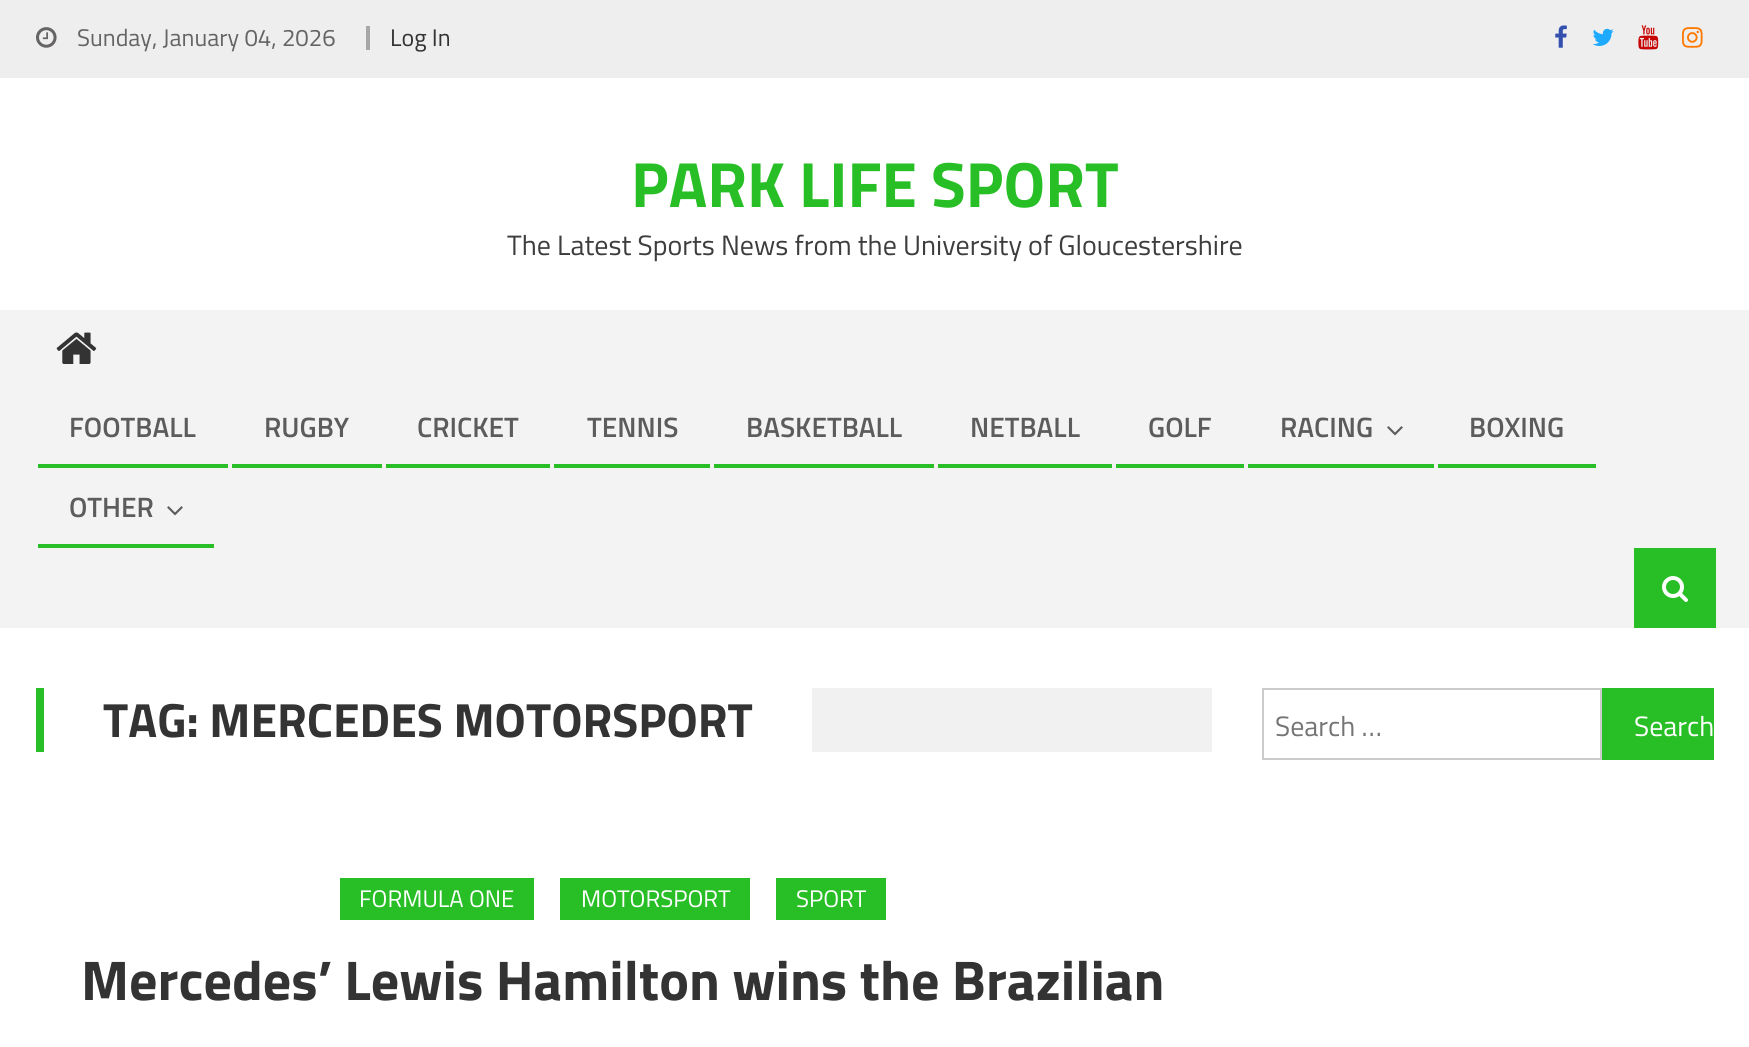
import math
import cairo

surface = cairo.ImageSurface(cairo.FORMAT_RGB24, 1749, 1047)
c = cairo.Context(surface)
options = cairo.FontOptions()
options.set_hint_metrics(cairo.HINT_METRICS_OFF)
options.set_hint_style(cairo.HINT_STYLE_NONE)
c.set_font_options(options)
c.set_miter_limit(4)
def C(code):
 c.set_source_rgb(*(v / 255 for v in bytes.fromhex(code[-6:])))
def F(family, size, italic, bold):
 c.select_font_face(family, cairo.FONT_SLANT_ITALIC if italic else cairo.FONT_SLANT_NORMAL, cairo.FONT_WEIGHT_BOLD if bold else cairo.FONT_WEIGHT_NORMAL)
 c.set_font_size(size)
def T(x, y, s):
 c.move_to(x, y)
 c.show_text(s)
def R(x, y, w, h):
 c.rectangle(x, y, w, h)
 c.fill()
def I(path, x, y, w, h):
 c.save()
 c.set_source_surface(cairo.ImageSurface.create_from_png(path), x, y)
 c.rectangle(x, y, w, h)
 c.fill()
 c.restore()
C('ffffff')
c.paint()
C('eeeeee')
R(0,0,1749,78)
I('1.png',36,27,21,21)
F('Titillium Web',24,0,0)
C('666363')
T(77,46,'Sunday, January 04, 2026')
C('a7a7a7')
R(366,26,4,24)
C('333333')
T(390,46,'Log In')
I('2.png',1555,25,12,23)
I('3.png',1592,28,22,18)
I('4.png',1638,25,21,25)
I('5.png',1682,27,21,21)
F('Titillium Web',64,0,1)
C('28bf26')
T(631,207,'PARK LIFE SPORT')
F('Titillium Web',28,0,0)
C('3d3d3d')
T(507,255,'The Latest Sports News from the University of Gloucestershire')
C('f3f3f3')
R(0,310,1749,318)
I('6.png',56,332,41,32)
C('28bf26')
R(38,464,190,4)
F('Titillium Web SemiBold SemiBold',28,0,0)
C('5d5c5c')
T(69,437,'FOOTBALL')
C('28bf26')
R(232,464,150,4)
C('5d5c5c')
T(264,437,'RUGBY')
C('28bf26')
R(386,464,164,4)
C('5d5c5c')
T(417,437,'CRICKET')
C('28bf26')
R(554,464,156,4)
C('5d5c5c')
T(587,437,'TENNIS')
C('28bf26')
R(714,464,220,4)
C('5d5c5c')
T(746,437,'BASKETBALL')
C('28bf26')
R(938,464,174,4)
C('5d5c5c')
T(970,437,'NETBALL')
C('28bf26')
R(1116,464,128,4)
C('5d5c5c')
T(1148,437,'GOLF')
C('28bf26')
R(1248,464,186,4)
C('5d5c5c')
T(1280,437,'RACING')
I('7.png',1387,426,16,10)
C('28bf26')
R(1438,464,158,4)
C('5d5c5c')
T(1469,437,'BOXING')
C('28bf26')
R(38,544,176,4)
C('5d5c5c')
T(69,517,'OTHER')
I('7.png',167,506,16,10)
C('28bf26')
R(1634,548,82,80)
I('8.png',1662,576,26,26)
C('f1f1f1')
R(812,688,400,64)
C('28bf26')
R(36,688,8,64)
F('Titillium Web',48,0,1)
C('333333')
T(103,737,'TAG: MERCEDES MOTORSPORT')
C('28bf26')
R(340,878,194,42)
F('Titillium Web',24,0,0)
C('ffffff')
T(359,907,'FORMULA ONE')
C('28bf26')
R(560,878,190,42)
C('ffffff')
T(581,907,'MOTORSPORT')
C('28bf26')
R(776,878,110,42)
C('ffffff')
T(796,907,'SPORT')
F('Titillium Web',56,0,1)
C('333333')
T(81,1000,'Mercedes’ Lewis Hamilton wins the Brazilian')
c.rectangle(1263,689,338,70)
C('cccccc')
c.stroke()
F('Titillium Web',28,0,0)
C('757575')
T(1275,736,'Search …')
C('28bf26')
R(1602,688,112,72)
C('ffffff')
T(1634,736,'Search')
surface.write_to_png('o.png')
